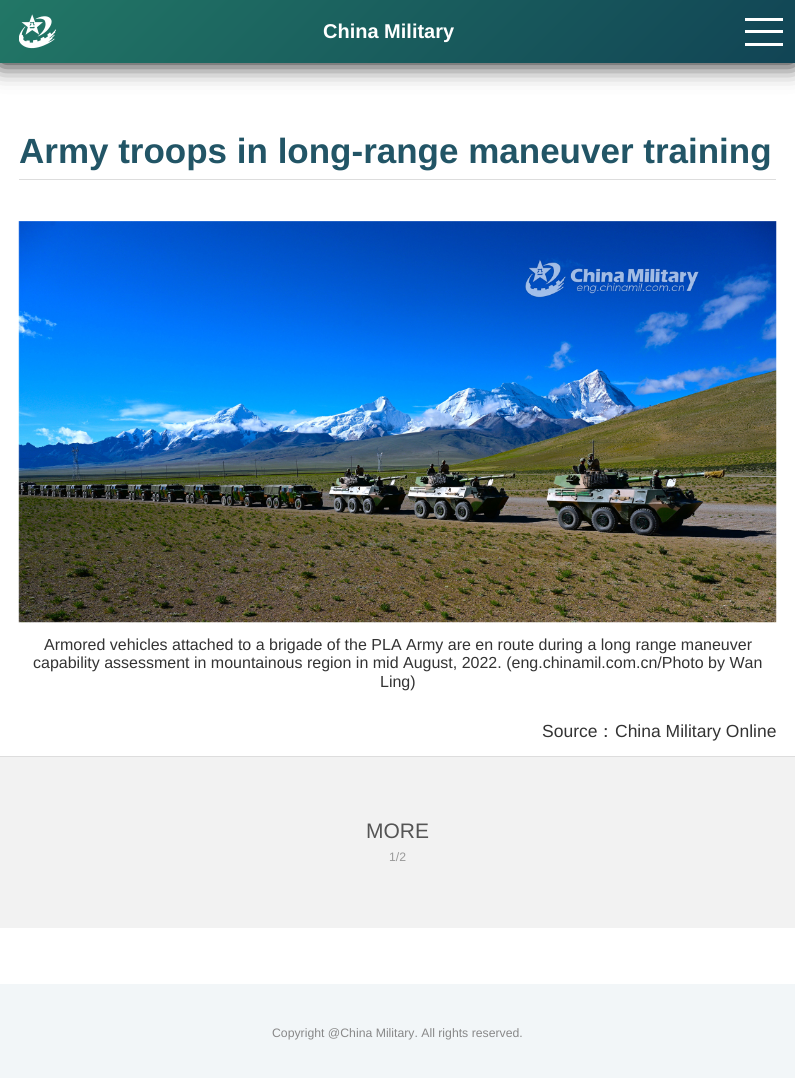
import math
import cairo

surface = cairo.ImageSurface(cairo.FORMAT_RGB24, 795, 1078)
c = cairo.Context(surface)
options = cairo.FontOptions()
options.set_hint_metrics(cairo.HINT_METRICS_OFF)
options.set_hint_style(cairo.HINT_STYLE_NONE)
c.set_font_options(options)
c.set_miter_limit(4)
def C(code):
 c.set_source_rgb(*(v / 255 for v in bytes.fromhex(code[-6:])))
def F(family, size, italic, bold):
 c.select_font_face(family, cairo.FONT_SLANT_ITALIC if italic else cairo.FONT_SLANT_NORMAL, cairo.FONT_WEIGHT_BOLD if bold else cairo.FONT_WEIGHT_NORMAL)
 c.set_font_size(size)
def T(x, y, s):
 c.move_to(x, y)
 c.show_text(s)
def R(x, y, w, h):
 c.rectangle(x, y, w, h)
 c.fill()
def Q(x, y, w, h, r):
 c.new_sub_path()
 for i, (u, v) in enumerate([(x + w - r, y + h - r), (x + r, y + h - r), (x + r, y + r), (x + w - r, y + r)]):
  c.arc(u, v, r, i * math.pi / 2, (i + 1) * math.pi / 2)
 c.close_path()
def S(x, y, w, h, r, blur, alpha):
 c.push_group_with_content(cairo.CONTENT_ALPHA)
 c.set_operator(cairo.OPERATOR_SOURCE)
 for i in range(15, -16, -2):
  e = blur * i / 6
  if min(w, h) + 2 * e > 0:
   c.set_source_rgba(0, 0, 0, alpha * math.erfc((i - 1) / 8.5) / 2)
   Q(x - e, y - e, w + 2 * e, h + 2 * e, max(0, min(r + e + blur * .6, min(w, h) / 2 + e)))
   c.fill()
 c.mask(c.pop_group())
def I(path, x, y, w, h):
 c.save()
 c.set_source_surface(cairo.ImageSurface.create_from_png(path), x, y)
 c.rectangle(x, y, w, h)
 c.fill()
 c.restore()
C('ffffff')
c.paint()
C('000000')
S(0,0,795,63,0,12.5,1)
gradient = cairo.LinearGradient(183,-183,612,246)
gradient.add_color_stop_rgba(0,0.133,0.467,0.4,1)
gradient.add_color_stop_rgba(1,0.067,0.267,0.333,1)
c.set_source(gradient)
R(0,0,795,63)
I('1.png',19,14,37,35)
F('Liberation Sans',20,0,1)
C('ffffff')
T(323,38,'China Military')
R(745,30,38,3)
R(745,18,38,3)
R(745,43,38,3)
F('Liberation Sans',35,0,1)
C('225566')
T(19,163,'Army troops in long-range maneuver training')
C('dddddd')
R(19,179,757,1)
I('2.png',18,221,759,402)
F('Liberation Sans',16,0,0)
C('333333')
T(44,650,'Armored vehicles attached to a brigade of the PLA Army are en route during a long range maneuver')
T(33,668,'capability assessment in mountainous region in mid August, 2022. (eng.chinamil.com.cn/Photo by Wan')
T(380,687,'Ling)')
F('Liberation Sans',17.5,0,0)
T(542,737,'Source')
F('WenQuanYi Zen Hei Medium',17.5,0,0)
T(597,737,'：')
F('Liberation Sans',17.5,0,0)
T(615,737,'China Military Online')
C('f2f2f2')
R(0,757,795,171)
C('dddddd')
R(0,756,795,1)
F('Liberation Sans',21,0,0)
C('555555')
T(366,838,'MORE')
F('Liberation Sans',12.25,0,0)
C('999999')
T(389,861,'1/2')
C('f2f6f8')
R(0,984,795,94)
C('888888')
T(272,1037,'Copyright @China Military. All rights reserved.')
surface.write_to_png('o.png')
